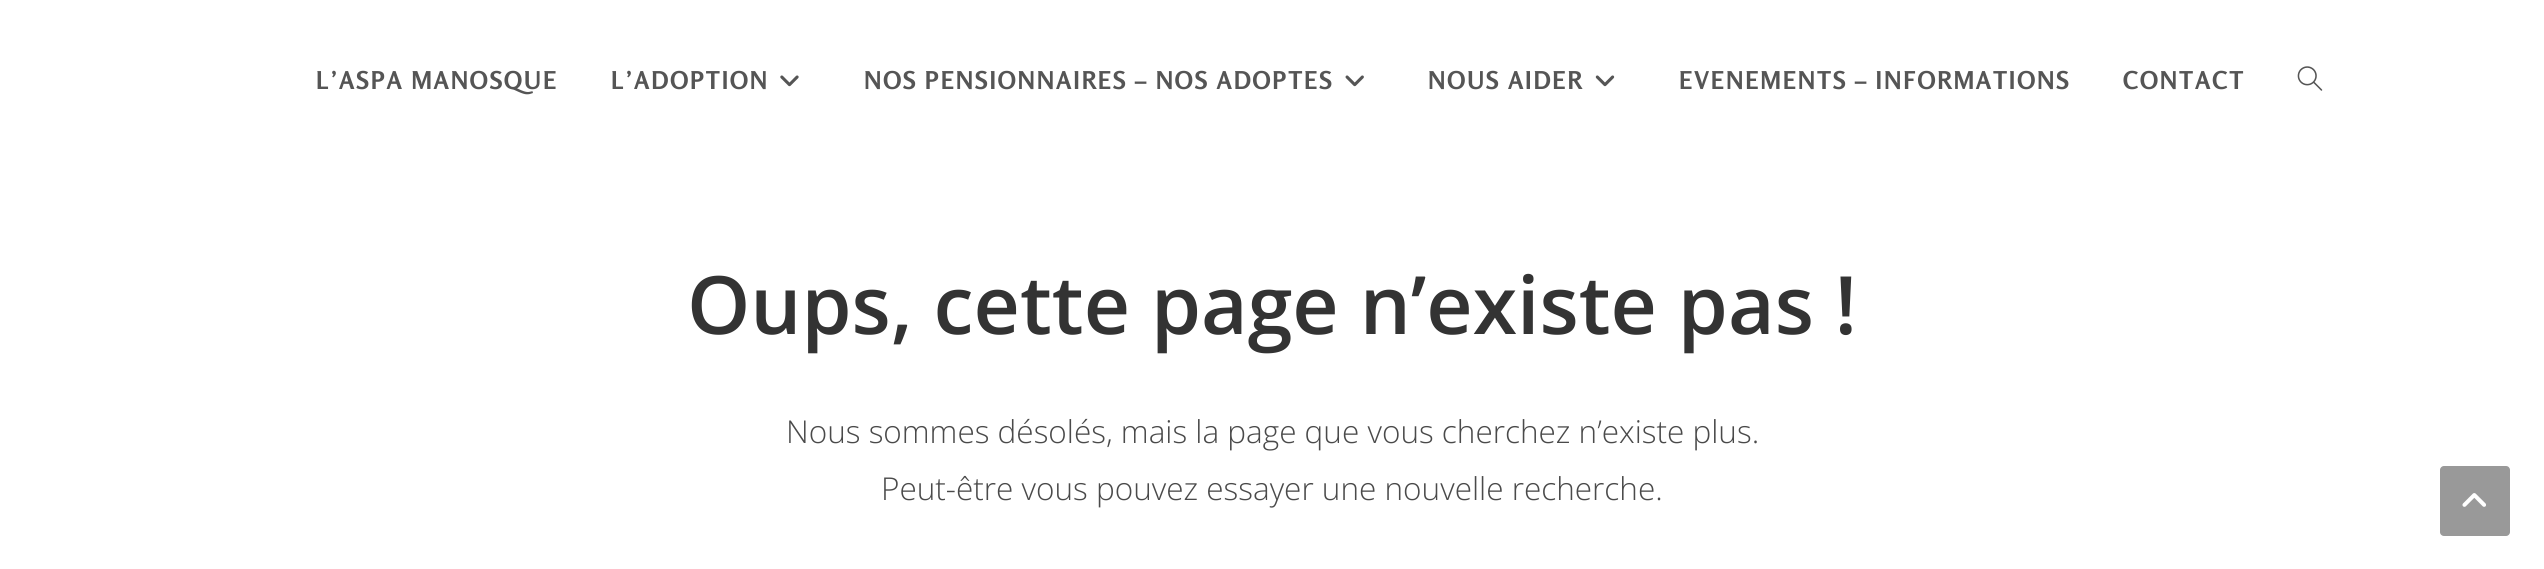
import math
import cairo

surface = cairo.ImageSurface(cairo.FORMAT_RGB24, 2544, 569)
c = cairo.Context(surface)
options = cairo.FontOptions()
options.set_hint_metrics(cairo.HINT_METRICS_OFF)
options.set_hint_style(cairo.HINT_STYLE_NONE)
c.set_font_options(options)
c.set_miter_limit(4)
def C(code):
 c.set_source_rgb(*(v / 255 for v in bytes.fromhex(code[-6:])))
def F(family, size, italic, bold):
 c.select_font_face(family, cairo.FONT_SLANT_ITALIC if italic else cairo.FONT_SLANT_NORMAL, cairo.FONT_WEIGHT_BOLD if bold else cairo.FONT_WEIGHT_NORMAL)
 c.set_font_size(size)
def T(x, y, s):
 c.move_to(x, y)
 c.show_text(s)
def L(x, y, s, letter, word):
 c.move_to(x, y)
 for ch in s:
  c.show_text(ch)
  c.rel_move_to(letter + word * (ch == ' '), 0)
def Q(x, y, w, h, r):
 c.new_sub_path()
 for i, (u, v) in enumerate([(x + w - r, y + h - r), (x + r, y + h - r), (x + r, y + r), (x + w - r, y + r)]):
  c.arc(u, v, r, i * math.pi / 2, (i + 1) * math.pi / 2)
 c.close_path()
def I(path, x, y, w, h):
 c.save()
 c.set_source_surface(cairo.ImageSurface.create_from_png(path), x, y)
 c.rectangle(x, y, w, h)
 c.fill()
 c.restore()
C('ffffff')
c.paint()
F('Rosario',24.5,0,1)
C('555555')
L(316,89,'L’ASPA MANOSQUE',1.75,0)
L(611,89,'L’ADOPTION',1.75,0)
I('1.png',780,75,19,12)
L(864,89,'NOS PENSIONNAIRES – NOS ADOPTES',1.75,0)
I('2.png',1345,75,19,12)
L(1428,89,'NOUS AIDER',1.75,0)
I('3.png',1595,75,20,12)
L(1679,89,'EVENEMENTS – INFORMATIONS',1.75,0)
L(2123,89,'CONTACT',1.75,0)
I('4.png',2297,66,26,25)
F('Open Sans SemiBold',80.5,0,0)
C('333333')
T(687,334,'Oups, cette page n’existe pas !')
F('Open Sans Light',31.5,0,0)
C('4a4a4a')
T(786,443,'Nous sommes désolés, mais la page que vous cherchez n’existe plus.')
T(881,500,'Peut-être vous pouvez essayer une nouvelle recherche.')
C('999999')
Q(2440,466,70,70,4)
c.fill()
I('5.png',2462,493,24,14)
surface.write_to_png('o.png')
